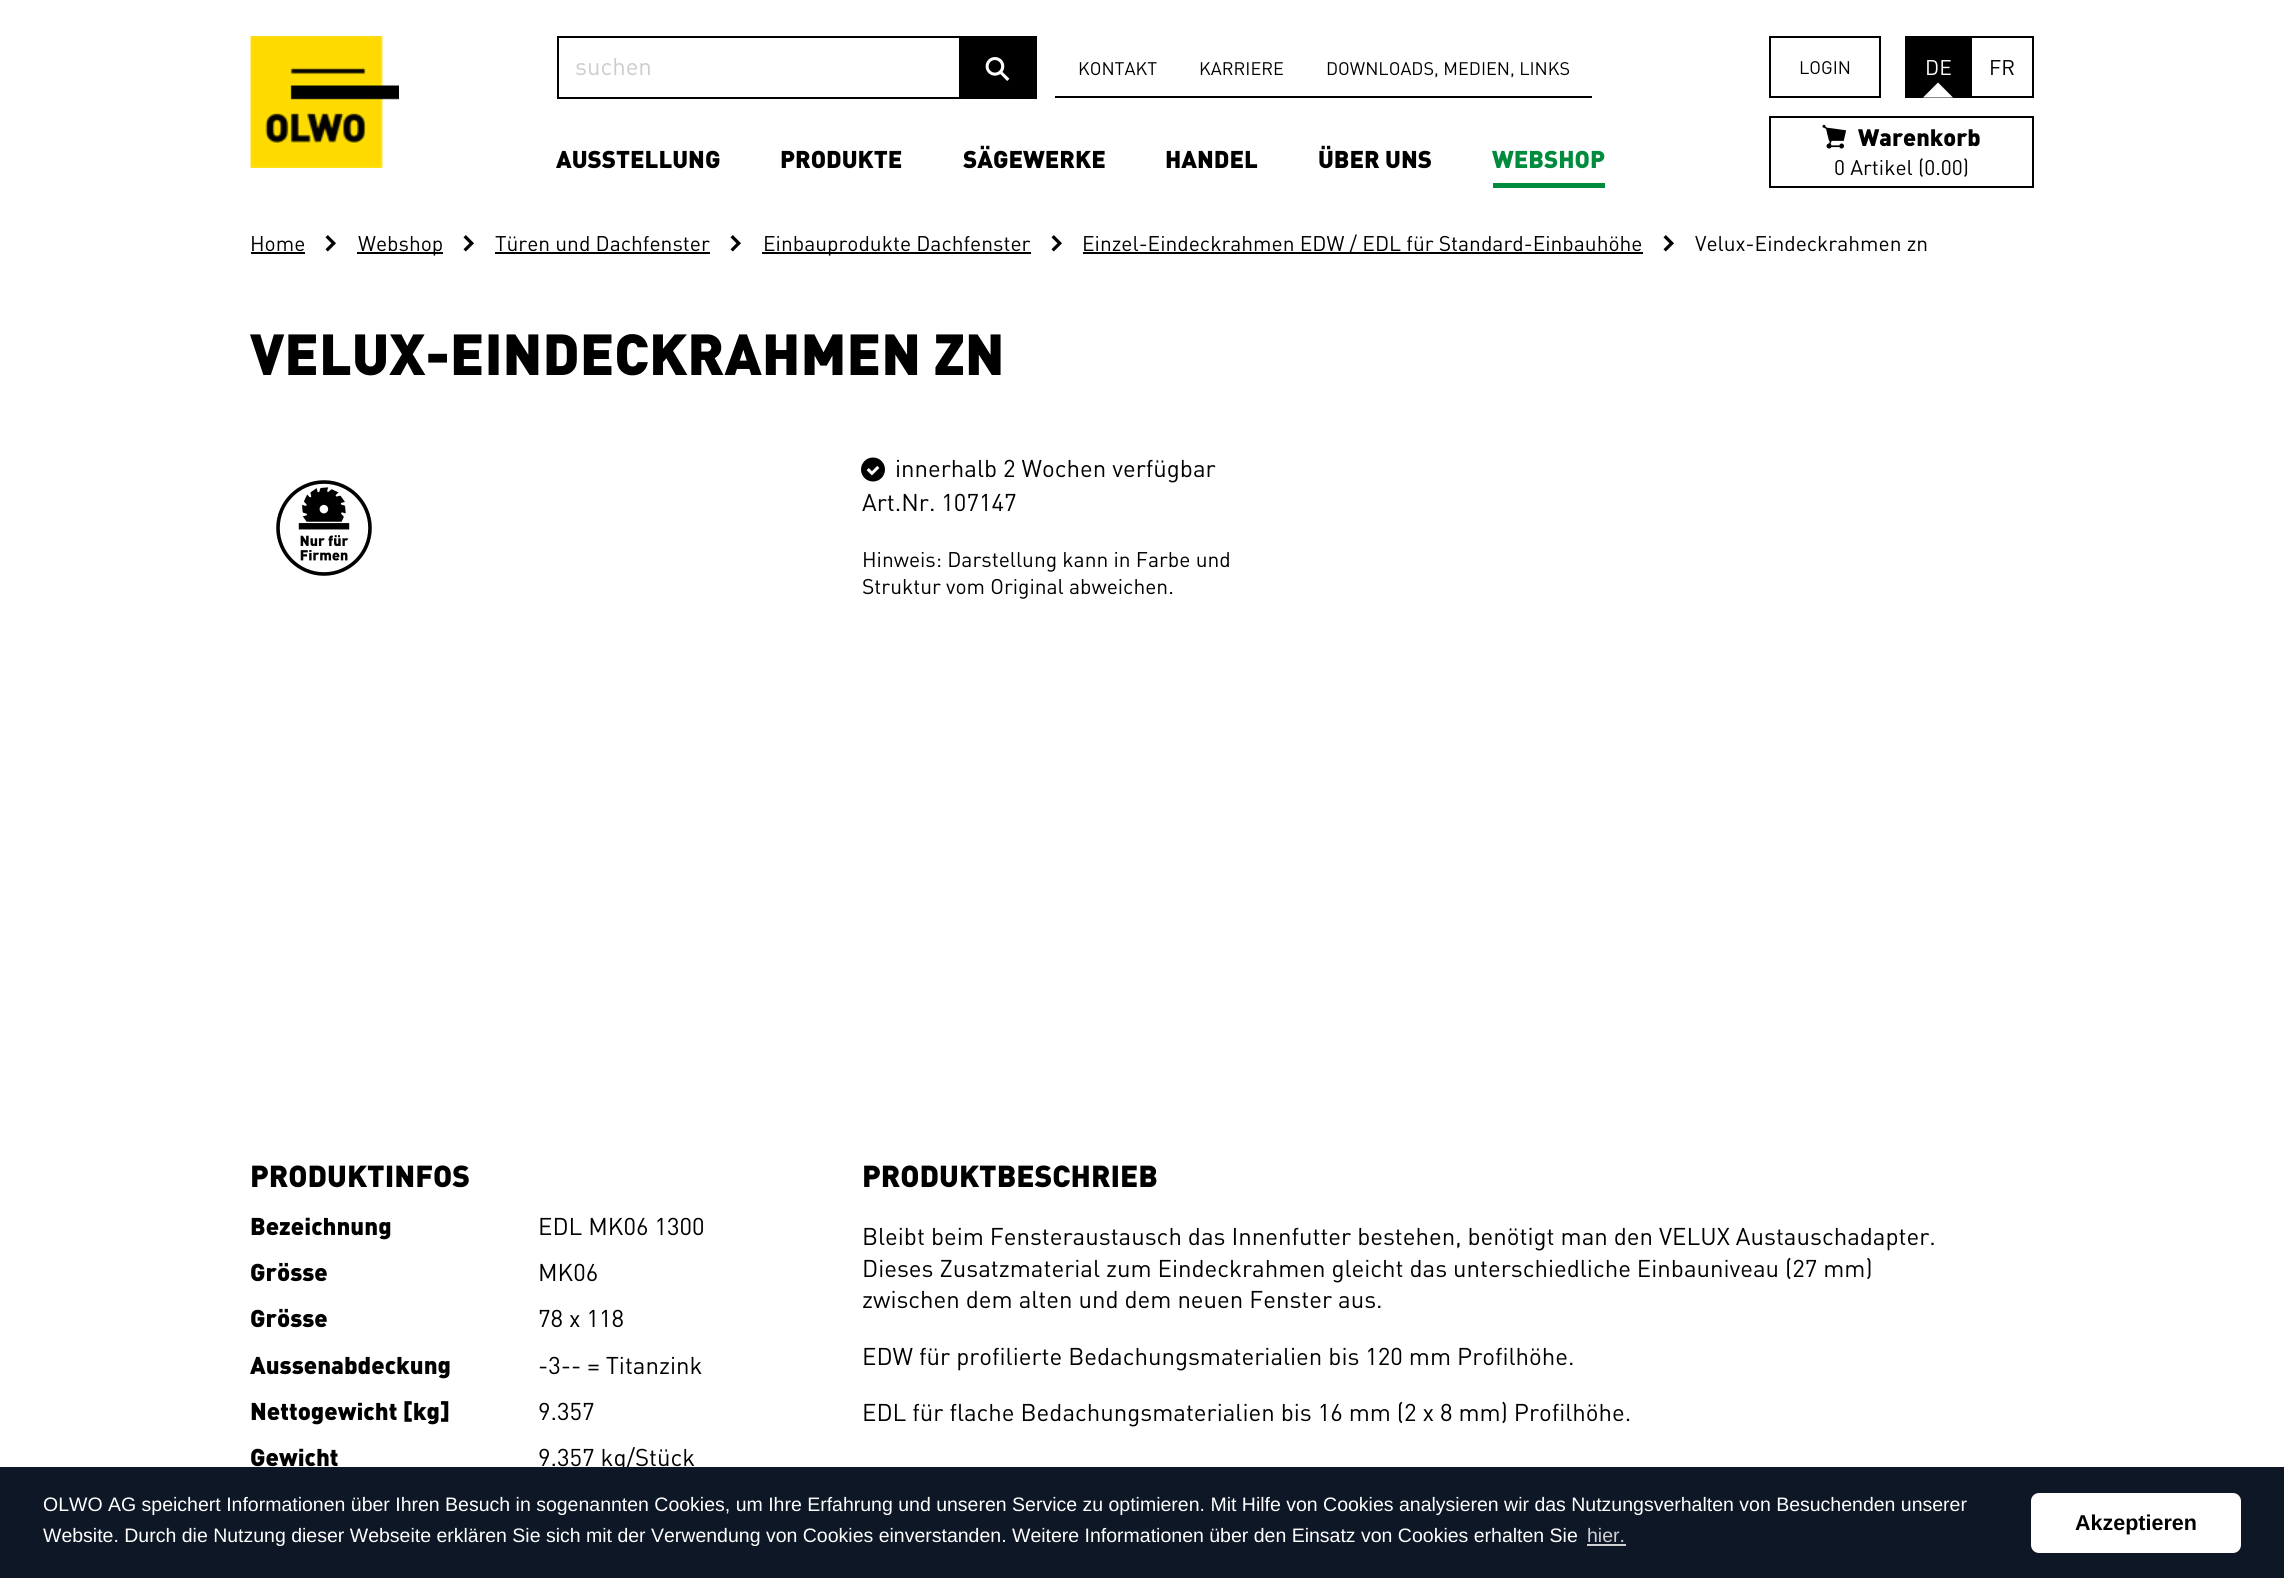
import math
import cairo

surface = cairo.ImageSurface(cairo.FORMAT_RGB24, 2284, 1578)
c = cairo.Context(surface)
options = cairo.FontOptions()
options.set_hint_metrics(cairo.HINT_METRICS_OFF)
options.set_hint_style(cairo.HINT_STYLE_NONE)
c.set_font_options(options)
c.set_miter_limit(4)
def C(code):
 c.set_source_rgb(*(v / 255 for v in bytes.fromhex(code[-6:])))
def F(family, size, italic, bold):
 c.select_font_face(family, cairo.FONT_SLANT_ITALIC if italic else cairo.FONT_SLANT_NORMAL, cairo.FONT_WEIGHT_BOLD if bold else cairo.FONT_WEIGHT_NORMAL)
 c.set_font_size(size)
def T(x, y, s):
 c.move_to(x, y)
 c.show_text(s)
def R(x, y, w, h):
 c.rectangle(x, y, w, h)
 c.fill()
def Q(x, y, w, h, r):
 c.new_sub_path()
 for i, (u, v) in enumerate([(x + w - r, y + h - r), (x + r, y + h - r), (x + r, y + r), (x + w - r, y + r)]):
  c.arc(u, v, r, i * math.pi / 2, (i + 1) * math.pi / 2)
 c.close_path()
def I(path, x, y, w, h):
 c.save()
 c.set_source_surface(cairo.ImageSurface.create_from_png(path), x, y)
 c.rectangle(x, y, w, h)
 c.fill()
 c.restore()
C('ffffff')
c.paint()
I('1.png',250,36,149,132)
c.rectangle(558,37,478,61)
C('000000')
c.stroke()
F('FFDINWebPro',24,0,0)
C('cccccc')
T(575,75,'suchen')
C('000000')
R(959,38,76,59)
I('2.png',985,57,25,24)
R(1055,96,537,2)
F('FFDINWebPro',18,0,0)
T(1078,75,'KONTAKT')
T(1199,75,'KARRIERE')
T(1326,75,'DOWNLOADS, MEDIEN, LINKS')
c.rectangle(1770,37,110,60)
c.stroke()
T(1799,74,'LOGIN')
R(1905,36,65,62)
F('FFDINWebPro',21,0,0)
C('ffffff')
T(1925,75,'DE')
c.new_path()
c.move_to(1953,97.5)
c.line_to(1923,97.5)
c.line_to(1938,82.5)
c.close_path()
c.fill()
c.rectangle(1971,37,62,60)
C('000000')
c.stroke()
T(1989,75,'FR')
F('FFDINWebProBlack',24,0,0)
T(556,168,'AUSSTELLUNG')
T(780,168,'PRODUKTE')
T(963,168,'SÄGEWERKE')
T(1165,168,'HANDEL')
T(1318,168,'ÜBER UNS')
C('008b3d')
R(1493,183,112,5)
T(1492,168,'WEBSHOP')
c.rectangle(1770,117,263,70)
C('000000')
c.stroke()
I('3.png',1822,124,25,25)
F('FFDINWebProBlack',23.5,0,0)
T(1858,146,'Warenkorb')
F('FFDINWebPro',21,0,0)
T(1834,175,'0 Artikel (0.00)')
T(250,251,'Home')
R(251,252,54,2)
I('4.png',325,235,11,17)
R(357,252,86,2)
T(358,251,'Webshop')
I('4.png',463,235,11,17)
T(495,251,'Türen und Dachfenster')
R(495,252,215,2)
I('4.png',730,235,11,17)
R(762,252,269,2)
T(763,251,'Einbauprodukte Dachfenster')
I('4.png',1051,235,11,17)
R(1083,252,560,2)
T(1082,251,'Einzel-Eindeckrahmen EDW / EDL für Standard-Einbauhöhe')
I('4.png',1663,235,11,17)
T(1695,251,'Velux-Eindeckrahmen zn')
F('FFDINWebProBlack',57,0,0)
T(250,375,'VELUX-EINDECKRAHMEN ZN')
I('5.png',276,480,96,96)
I('6.png',861,457,24,25)
F('FFDINWebPro',24,0,0)
T(895,477,'innerhalb 2 Wochen verfügbar')
T(862,511,'Art.Nr. 107147')
F('FFDINWebPro',21,0,0)
T(862,567,'Hinweis: Darstellung kann in Farbe und')
T(862,594,'Struktur vom Original abweichen.')
F('FFDINWebProBlack',30,0,0)
T(250,1187,'PRODUKTINFOS')
F('FFDINWebProBlack',24,0,0)
T(250,1235,'Bezeichnung')
F('FFDINWebPro',24,0,0)
T(538,1235,'EDL MK06 1300')
F('FFDINWebProBlack',24,0,0)
T(250,1281,'Grösse')
F('FFDINWebPro',24,0,0)
T(538,1281,'MK06')
F('FFDINWebProBlack',24,0,0)
T(250,1327,'Grösse')
F('FFDINWebPro',24,0,0)
T(538,1327,'78 x 118')
F('FFDINWebProBlack',24,0,0)
T(250,1374,'Aussenabdeckung')
F('FFDINWebPro',24,0,0)
T(538,1374,'-3-- = Titanzink')
F('FFDINWebProBlack',24,0,0)
T(250,1420,'Nettogewicht [kg]')
F('FFDINWebPro',24,0,0)
T(538,1420,'9.357')
F('FFDINWebProBlack',24,0,0)
T(250,1466,'Gewicht')
F('FFDINWebPro',24,0,0)
T(538,1466,'9.357 kg/Stück')
F('FFDINWebProBlack',30,0,0)
T(862,1187,'PRODUKTBESCHRIEB')
F('FFDINWebPro',24,0,0)
T(862,1245,'Bleibt beim Fensteraustausch das Innenfutter bestehen, benötigt man den VELUX Austauschadapter.')
T(862,1277,'Dieses Zusatzmaterial zum Eindeckrahmen gleicht das unterschiedliche Einbauniveau (27 mm)')
T(862,1308,'zwischen dem alten und dem neuen Fenster aus.')
T(862,1365,'EDW für profilierte Bedachungsmaterialien bis 120 mm Profilhöhe.')
T(862,1421,'EDL für flache Bedachungsmaterialien bis 16 mm (2 x 8 mm) Profilhöhe.')
C('0e1726')
R(0,1467,2284,111)
F('Liberation Sans',19.5,0,0)
C('ffffff')
T(43,1511,'OLWO AG speichert Informationen über Ihren Besuch in sogenannten Cookies, um Ihre Erfahrung und unseren Service zu optimieren. Mit Hilfe von Cookies analysieren wir das Nutzungsverhalten von Besuchenden unserer')
T(43,1542,'Website. Durch die Nutzung dieser Webseite erklären Sie sich mit der Verwendung von Cookies einverstanden. Weitere Informationen über den Einsatz von Cookies erhalten Sie')
C('cfd1d4')
T(1587,1542,'hier.')
R(1587,1544,39,2)
C('ffffff')
Q(2031,1493,210,60,8)
c.fill()
F('Liberation Sans',21.5,0,1)
C('000000')
T(2075,1530,'Akzeptieren')
surface.write_to_png('o.png')
